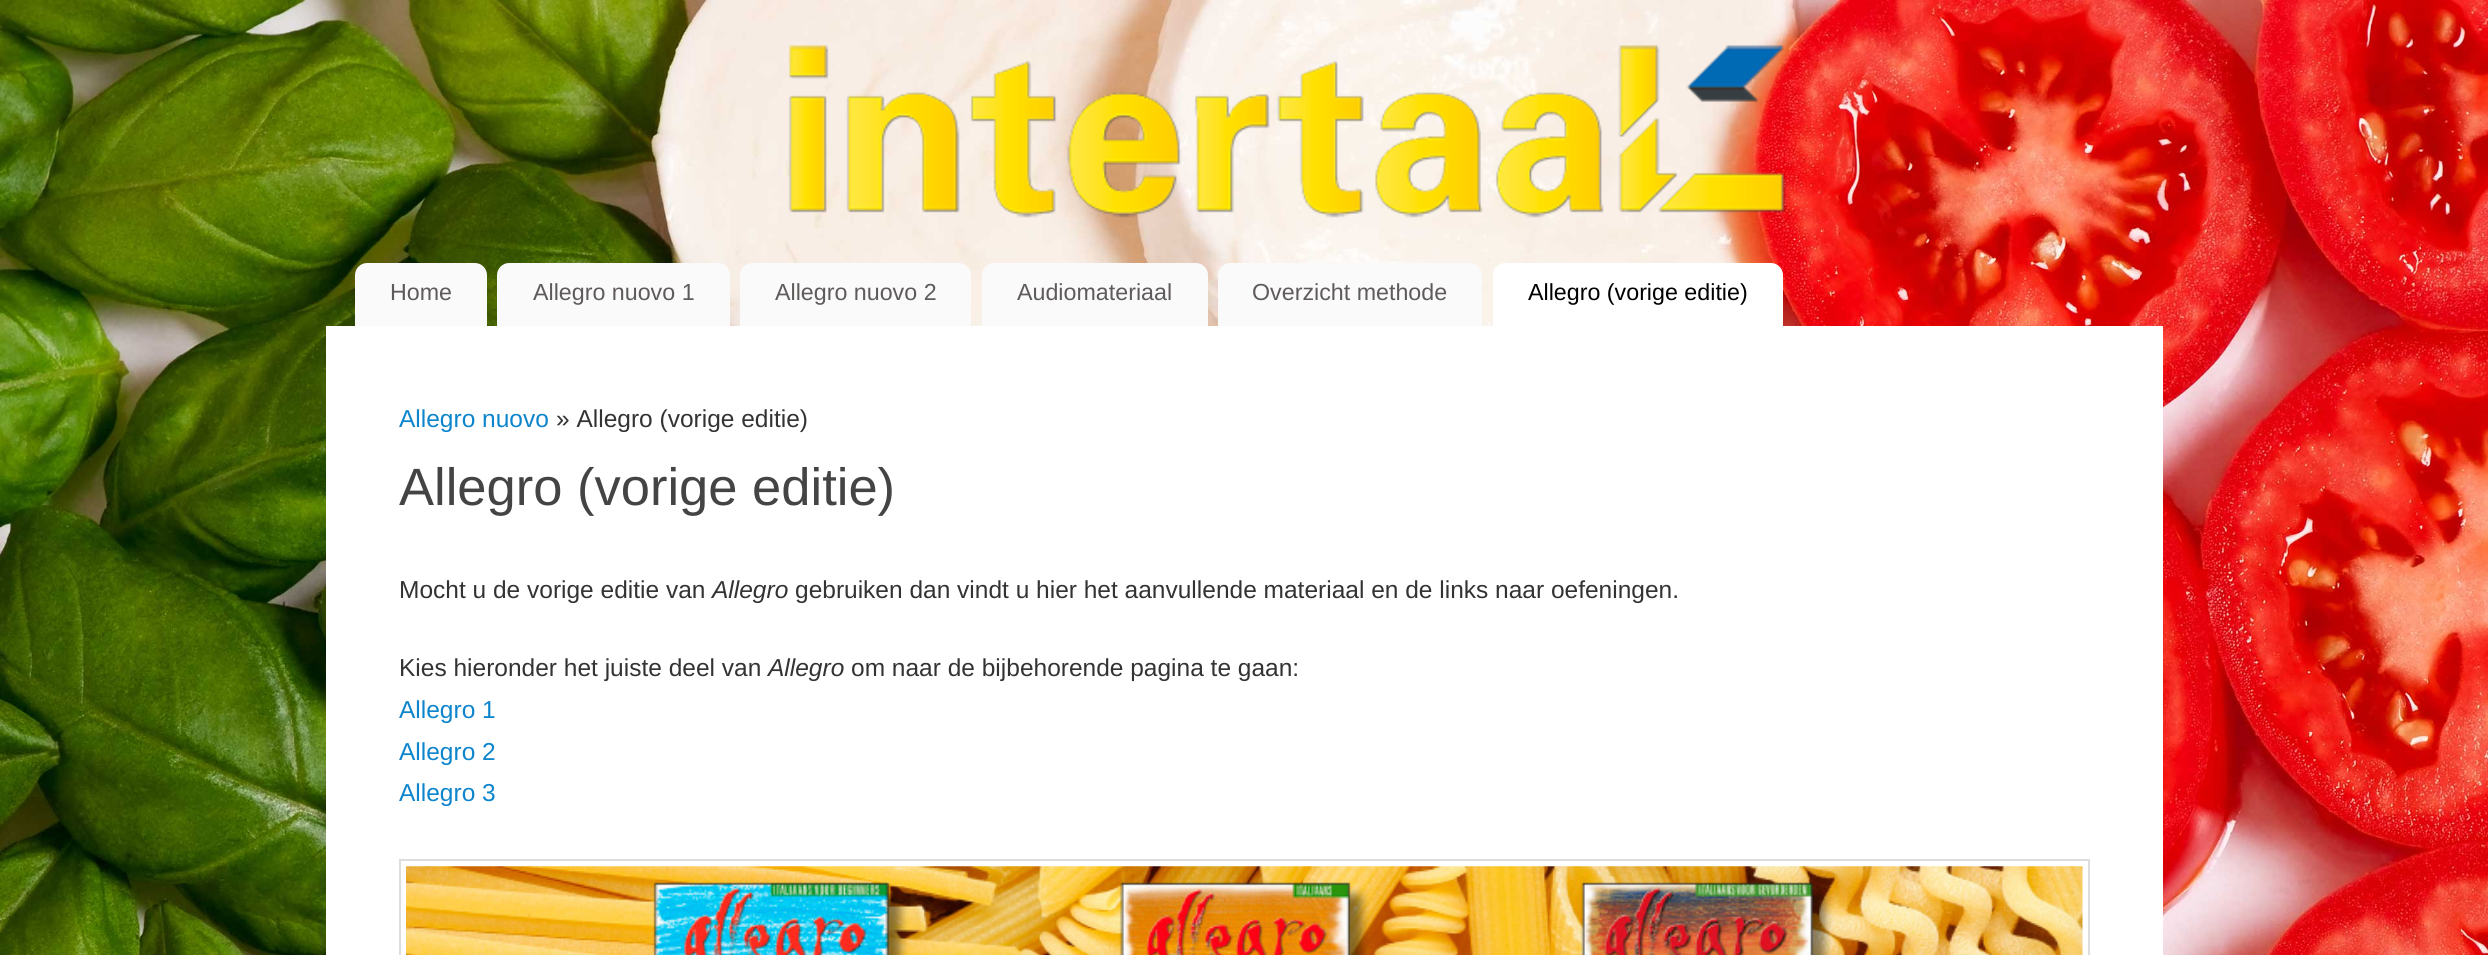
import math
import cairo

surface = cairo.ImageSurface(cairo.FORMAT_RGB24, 2488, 955)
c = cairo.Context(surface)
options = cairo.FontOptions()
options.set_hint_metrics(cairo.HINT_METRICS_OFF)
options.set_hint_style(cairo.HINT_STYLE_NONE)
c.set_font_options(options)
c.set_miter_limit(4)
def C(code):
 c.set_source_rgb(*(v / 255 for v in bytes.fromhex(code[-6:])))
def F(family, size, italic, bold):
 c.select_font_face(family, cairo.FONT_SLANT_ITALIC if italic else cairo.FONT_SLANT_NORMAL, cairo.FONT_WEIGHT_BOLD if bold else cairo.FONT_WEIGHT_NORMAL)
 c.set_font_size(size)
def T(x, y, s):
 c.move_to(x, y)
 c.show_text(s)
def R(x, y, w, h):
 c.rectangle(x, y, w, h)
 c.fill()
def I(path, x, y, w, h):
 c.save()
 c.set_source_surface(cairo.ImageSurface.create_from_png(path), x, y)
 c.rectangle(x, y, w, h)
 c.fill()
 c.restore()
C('ffffff')
c.paint()
I('1.png',0,0,2488,955)
I('2.png',788,45,998,173)
C('fafafa')
c.new_path()
c.move_to(367,263)
c.line_to(475,263)
c.curve_to(481.5,263,487,268.5,487,275)
c.line_to(487,326)
c.line_to(355,326)
c.line_to(355,275)
c.curve_to(355,268.5,360.5,263,367,263)
c.close_path()
c.fill()
F('Liberation Sans',23.25,0,0)
C('5f5b5b')
T(390,300,'Home')
C('fafafa')
c.new_path()
c.move_to(509,263)
c.line_to(718,263)
c.curve_to(724.5,263,730,268.5,730,275)
c.line_to(730,326)
c.line_to(497,326)
c.line_to(497,275)
c.curve_to(497,268.5,502.5,263,509,263)
c.close_path()
c.fill()
C('5f5b5b')
T(533,300,'Allegro nuovo 1')
C('fafafa')
c.new_path()
c.move_to(752,263)
c.line_to(959,263)
c.curve_to(965.5,263,971,268.5,971,275)
c.line_to(971,326)
c.line_to(740,326)
c.line_to(740,275)
c.curve_to(740,268.5,745.5,263,752,263)
c.close_path()
c.fill()
C('5f5b5b')
T(775,300,'Allegro nuovo 2')
C('fafafa')
c.new_path()
c.move_to(994,263)
c.line_to(1196,263)
c.curve_to(1202.5,263,1208,268.5,1208,275)
c.line_to(1208,326)
c.line_to(982,326)
c.line_to(982,275)
c.curve_to(982,268.5,987.5,263,994,263)
c.close_path()
c.fill()
C('5f5b5b')
T(1017,300,'Audiomateriaal')
C('fafafa')
c.new_path()
c.move_to(1230,263)
c.line_to(1470,263)
c.curve_to(1476.5,263,1482,268.5,1482,275)
c.line_to(1482,326)
c.line_to(1218,326)
c.line_to(1218,275)
c.curve_to(1218,268.5,1223.5,263,1230,263)
c.close_path()
c.fill()
C('5f5b5b')
T(1252,300,'Overzicht methode')
C('ffffff')
c.new_path()
c.move_to(1505,263)
c.line_to(1771,263)
c.curve_to(1777.5,263,1783,268.5,1783,275)
c.line_to(1783,326)
c.line_to(1493,326)
c.line_to(1493,275)
c.curve_to(1493,268.5,1498.5,263,1505,263)
c.close_path()
c.fill()
C('000000')
T(1528,300,'Allegro (vorige editie)')
C('ffffff')
R(326,326,1837,629)
F('Liberation Sans',24.5,0,0)
C('0d85cc')
T(399,427,'Allegro nuovo')
C('333333')
T(556,427,'» Allegro (vorige editie)')
F('Liberation Sans',52.5,0,0)
C('444444')
T(399,505,'Allegro (vorige editie)')
F('Liberation Sans',24.5,0,0)
C('333333')
T(399,598,'Mocht u de vorige editie van')
F('Liberation Sans',24.5,1,0)
T(712,598,'Allegro')
F('Liberation Sans',24.5,0,0)
T(795,598,'gebruiken dan vindt u hier het aanvullende materiaal en de links naar oefeningen.')
T(399,676,'Kies hieronder het juiste deel van')
F('Liberation Sans',24.5,1,0)
T(768,676,'Allegro')
F('Liberation Sans',24.5,0,0)
T(851,676,'om naar de bijbehorende pagina te gaan:')
C('0d85cc')
T(399,718,'Allegro 1')
T(399,760,'Allegro 2')
T(399,801,'Allegro 3')
c.rectangle(400,860,1689,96)
C('dddddd')
c.stroke()
I('3.png',406,866,1677,89)
surface.write_to_png('o.png')
